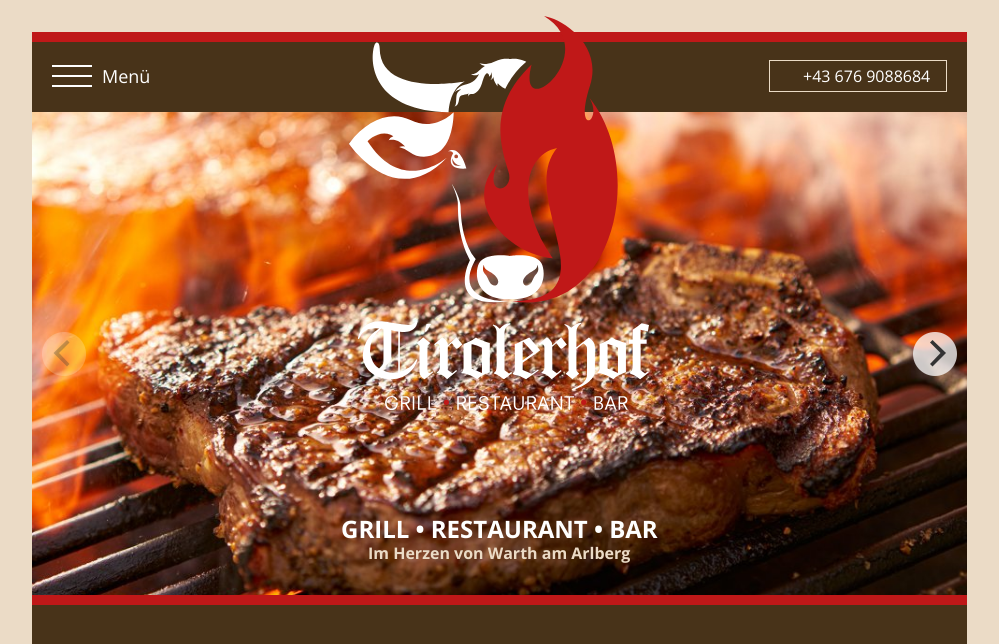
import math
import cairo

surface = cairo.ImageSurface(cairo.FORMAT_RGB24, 999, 644)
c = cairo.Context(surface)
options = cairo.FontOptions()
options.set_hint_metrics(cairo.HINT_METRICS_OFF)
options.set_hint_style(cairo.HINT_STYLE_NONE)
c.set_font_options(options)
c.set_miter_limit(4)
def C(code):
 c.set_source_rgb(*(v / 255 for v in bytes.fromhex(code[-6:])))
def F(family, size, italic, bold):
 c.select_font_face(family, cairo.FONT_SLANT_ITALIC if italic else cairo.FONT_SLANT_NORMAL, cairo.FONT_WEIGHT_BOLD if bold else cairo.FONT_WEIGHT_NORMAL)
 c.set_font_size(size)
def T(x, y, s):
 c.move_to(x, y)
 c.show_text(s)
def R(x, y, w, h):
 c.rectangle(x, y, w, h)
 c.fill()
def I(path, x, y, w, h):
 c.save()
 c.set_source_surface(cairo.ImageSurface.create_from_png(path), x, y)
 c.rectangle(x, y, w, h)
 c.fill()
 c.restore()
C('483319')
c.paint()
c.rectangle(16,16,967,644)
C('ebdbc6')
c.set_line_width(32)
c.stroke()
C('bf1818')
R(32,32,935,10)
C('ffffff')
R(52,75,40,2)
R(52,65,40,2)
R(52,85,40,2)
F('Open Sans',18,0,0)
T(102,83,'Menü')
I('2.png',32,112,935,483)
I('1.png',349,16,300,394)
c.rectangle(769.5,60.5,177,31)
C('ebdbc6')
c.set_line_width(1)
c.stroke()
F('Open Sans',16,0,0)
C('ffffff')
T(803,82,'+43 676 9088684')
c.set_source_rgba(1,1,1,0.22)
c.new_path()
c.arc(64,354,22,0,2 * math.pi)
c.fill()
c.set_source_rgba(0.2,0.2,0.2,0.3)
c.new_path()
c.move_to(53.5,353)
c.line_to(67,366.5)
c.line_to(69.5,364)
c.line_to(59,353)
c.line_to(69.5,342.5)
c.line_to(67,340)
c.close_path()
c.fill()
c.set_source_rgba(1,1,1,0.75)
c.arc(935,354,22,0,2 * math.pi)
c.fill()
C('333333')
c.new_path()
c.move_to(946,353)
c.line_to(932.5,340)
c.line_to(930,342.5)
c.line_to(940.5,353)
c.line_to(930,364)
c.line_to(932.5,366.5)
c.close_path()
c.fill()
F('Open Sans',24,0,1)
C('ffffff')
T(341,538,'GRILL • RESTAURANT • BAR')
F('Open Sans',16,0,1)
C('ebdbc6')
T(368,559,'Im Herzen von Warth am Arlberg')
C('bf1818')
R(32,595,935,10)
surface.write_to_png('o.png')
